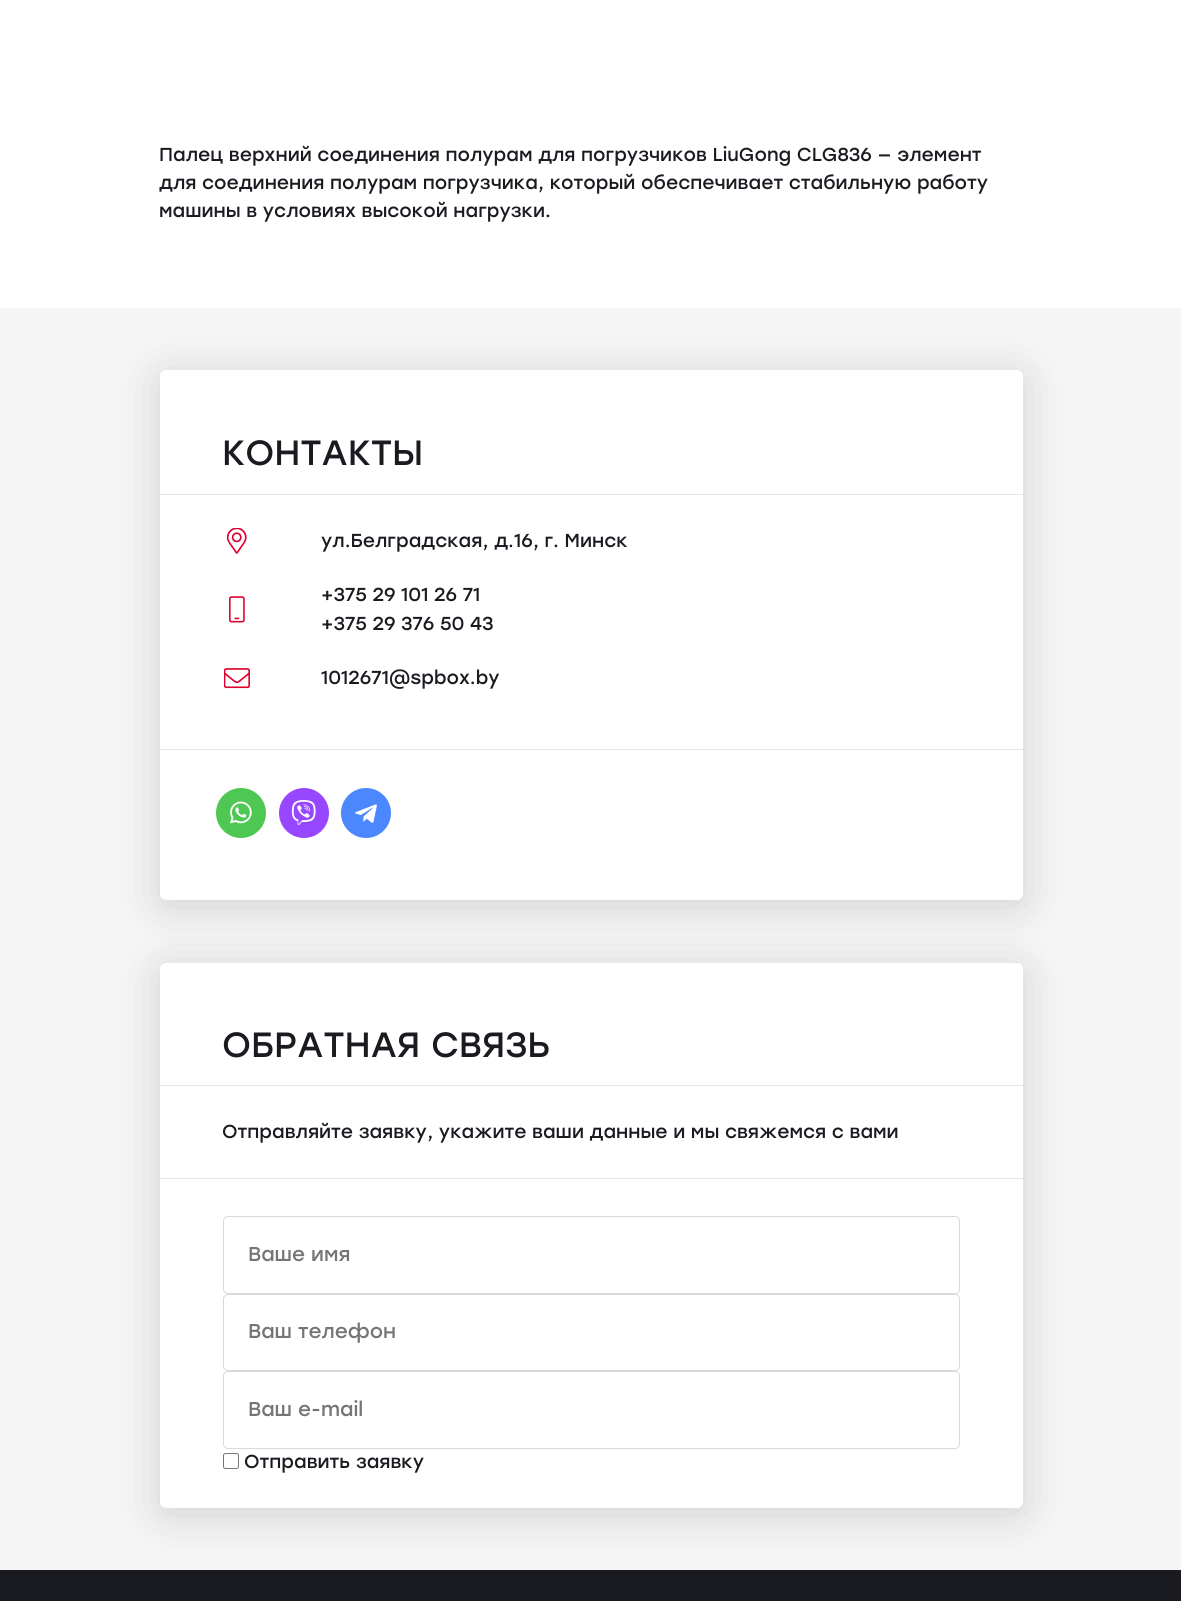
import math
import cairo

surface = cairo.ImageSurface(cairo.FORMAT_RGB24, 1181, 1601)
c = cairo.Context(surface)
options = cairo.FontOptions()
options.set_hint_metrics(cairo.HINT_METRICS_OFF)
options.set_hint_style(cairo.HINT_STYLE_NONE)
c.set_font_options(options)
c.set_miter_limit(4)
def C(code):
 c.set_source_rgb(*(v / 255 for v in bytes.fromhex(code[-6:])))
def F(family, size, italic, bold):
 c.select_font_face(family, cairo.FONT_SLANT_ITALIC if italic else cairo.FONT_SLANT_NORMAL, cairo.FONT_WEIGHT_BOLD if bold else cairo.FONT_WEIGHT_NORMAL)
 c.set_font_size(size)
def T(x, y, s):
 c.move_to(x, y)
 c.show_text(s)
def R(x, y, w, h):
 c.rectangle(x, y, w, h)
 c.fill()
def Q(x, y, w, h, r):
 c.new_sub_path()
 for i, (u, v) in enumerate([(x + w - r, y + h - r), (x + r, y + h - r), (x + r, y + r), (x + w - r, y + r)]):
  c.arc(u, v, r, i * math.pi / 2, (i + 1) * math.pi / 2)
 c.close_path()
def S(x, y, w, h, r, blur, alpha):
 c.push_group_with_content(cairo.CONTENT_ALPHA)
 c.set_operator(cairo.OPERATOR_SOURCE)
 for i in range(15, -16, -2):
  e = blur * i / 6
  if min(w, h) + 2 * e > 0:
   c.set_source_rgba(0, 0, 0, alpha * math.erfc((i - 1) / 8.5) / 2)
   Q(x - e, y - e, w + 2 * e, h + 2 * e, max(0, min(r + e + blur * .6, min(w, h) / 2 + e)))
   c.fill()
 c.mask(c.pop_group())
def I(path, x, y, w, h):
 c.save()
 c.set_source_surface(cairo.ImageSurface.create_from_png(path), x, y)
 c.rectangle(x, y, w, h)
 c.fill()
 c.restore()
C('ffffff')
c.paint()
F('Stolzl',18.75,0,0)
C('1a1b20')
T(159,161,'Палец верхний соединения полурам для погрузчиков LiuGong CLG836 — элемент')
T(159,189,'для соединения полурам погрузчика, который обеспечивает стабильную работу')
T(159,217,'машины в условиях высокой нагрузки.')
C('f5f5f5')
R(0,308,1181,1262)
C('000000')
S(160,376,863,530,6,22,.15)
C('ffffff')
Q(160,370,863,530,6)
c.fill()
F('Stolzl',35,0,0)
C('1a1b20')
T(222,465,'КОНТАКТЫ')
C('e6e6e6')
R(160,494,863,1)
R(160,749,863,1)
I('1.png',226,528,21,26)
F('Stolzl',18.75,0,0)
C('1a1b20')
T(321,547,'ул.Белградская, д.16, г. Минск')
I('2.png',229,596,16,27)
T(321,601,'+375 29 101 26 71')
T(321,630,'+375 29 376 50 43')
I('3.png',224,668,26,21)
T(321,684,'1012671@spbox.by')
I('4.png',216,788,50,50)
I('5.png',279,788,50,50)
I('6.png',341,788,50,50)
R(0,1570,1181,31)
C('000000')
S(160,969,863,545,6,22,.15)
C('ffffff')
Q(160,963,863,545,6)
c.fill()
F('Stolzl',35,0,0)
C('1a1b20')
T(222,1057,'ОБРАТНАЯ СВЯЗЬ')
C('e6e6e6')
R(160,1085,863,1)
R(160,1178,863,1)
F('Stolzl',18.75,0,0)
C('1a1b20')
T(222,1138,'Отправляйте заявку, укажите ваши данные и мы свяжемся с вами')
Q(223.5,1216.5,736,77,4.5)
C('d9d9d9')
c.set_line_width(1)
c.stroke()
F('Stolzl',20,0,0)
C('757575')
T(248,1261,'Ваше имя')
Q(223.5,1294.5,736,76,4.5)
C('d9d9d9')
c.stroke()
C('757575')
T(248,1338,'Ваш телефон')
Q(223.5,1371.5,736,77,4.5)
C('d9d9d9')
c.stroke()
C('757575')
T(248,1416,'Ваш e-mail')
Q(223.5,1453.5,15,15,2)
C('767676')
c.stroke()
F('Stolzl',18.75,0,0)
C('1a1b20')
T(244,1468,'Отправить заявку')
surface.write_to_png('o.png')
